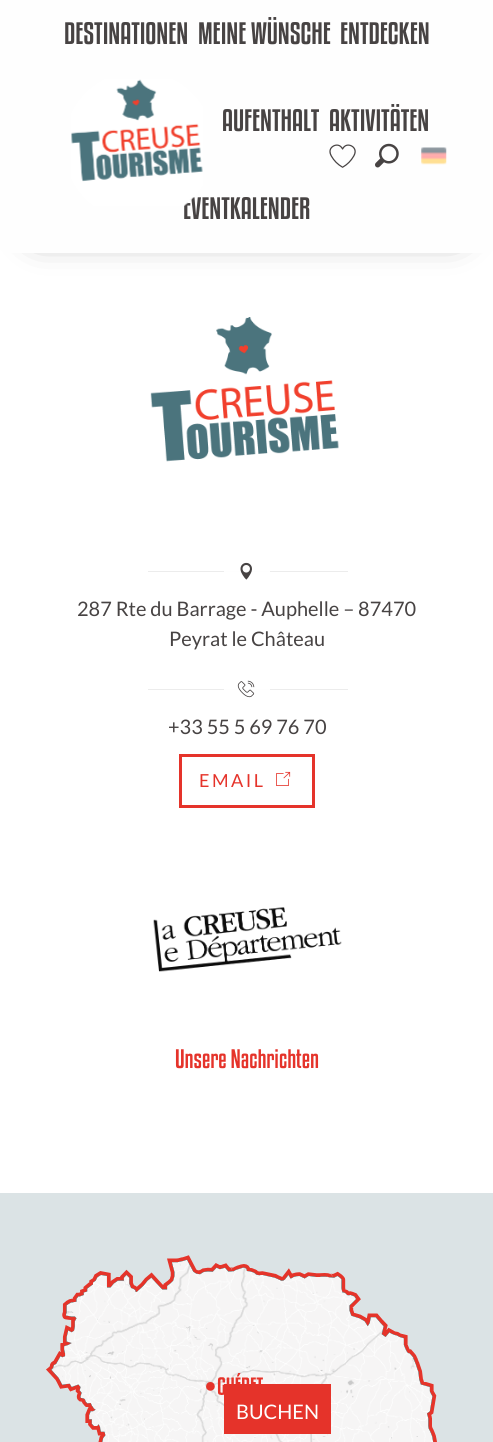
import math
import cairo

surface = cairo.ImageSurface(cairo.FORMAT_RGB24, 493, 1442)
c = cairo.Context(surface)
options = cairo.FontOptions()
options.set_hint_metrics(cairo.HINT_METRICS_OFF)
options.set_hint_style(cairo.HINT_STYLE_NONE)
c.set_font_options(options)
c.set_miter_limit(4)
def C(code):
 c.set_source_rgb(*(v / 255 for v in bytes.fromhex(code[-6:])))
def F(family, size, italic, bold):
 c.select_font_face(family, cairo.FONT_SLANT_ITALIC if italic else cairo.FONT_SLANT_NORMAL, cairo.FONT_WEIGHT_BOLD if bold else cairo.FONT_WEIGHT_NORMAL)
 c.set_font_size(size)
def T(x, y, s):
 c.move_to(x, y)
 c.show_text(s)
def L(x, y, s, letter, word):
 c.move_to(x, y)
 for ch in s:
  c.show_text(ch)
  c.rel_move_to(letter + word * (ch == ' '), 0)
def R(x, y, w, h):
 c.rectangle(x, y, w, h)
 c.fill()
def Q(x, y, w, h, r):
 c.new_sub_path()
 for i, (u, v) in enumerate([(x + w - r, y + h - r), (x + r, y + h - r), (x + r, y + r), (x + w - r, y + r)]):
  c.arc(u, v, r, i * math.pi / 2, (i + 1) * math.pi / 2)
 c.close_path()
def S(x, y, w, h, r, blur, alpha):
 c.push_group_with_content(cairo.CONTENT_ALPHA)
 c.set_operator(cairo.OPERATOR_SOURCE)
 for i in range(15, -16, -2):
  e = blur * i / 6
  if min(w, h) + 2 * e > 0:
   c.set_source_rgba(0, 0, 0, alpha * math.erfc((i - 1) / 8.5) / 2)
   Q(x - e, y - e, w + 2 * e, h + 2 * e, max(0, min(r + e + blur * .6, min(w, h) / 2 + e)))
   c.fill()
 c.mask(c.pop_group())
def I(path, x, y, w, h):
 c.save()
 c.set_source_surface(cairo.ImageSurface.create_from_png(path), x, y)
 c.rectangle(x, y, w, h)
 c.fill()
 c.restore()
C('ffffff')
c.paint()
C('474343')
S(38,41,418,187,0,19,1)
C('fefefe')
c.new_path()
c.move_to(0,-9)
c.line_to(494,-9)
c.line_to(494,240)
c.curve_to(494,247,488,253,481,253)
c.line_to(13,253)
c.curve_to(6,253,0,247,0,240)
c.close_path()
c.fill()
F('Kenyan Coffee',27.5,0,0)
C('474343')
T(64,44,'DESTINATIONEN')
T(198,44,'MEINE WÜNSCHE')
T(340,44,'ENTDECKEN')
T(183,219,'EVENTKALENDER')
I('1.png',71,79,132,127)
T(222,131,'AUFENTHALT')
T(329,131,'AKTIVITÄTEN')
I('2.png',329,144,27,24)
I('3.png',375,143,24,25)
I('4.png',421,147,26,18)
I('5.png',150,317,189,145)
C('ececec')
R(148,571,200,1)
C('fefefe')
R(224,571,46,1)
I('6.png',240,562,12,18)
F('Lato',20,0,0)
C('474343')
T(77,616,'287 Rte du Barrage - Auphelle – 87470')
T(169,646,'Peyrat le Château')
C('ececec')
R(148,689,200,1)
C('fefefe')
R(224,689,46,1)
I('7.png',237,680,18,18)
C('474343')
T(168,734,'+33 55 5 69 76 70')
c.rectangle(180.5,755.5,133,51)
C('e5332a')
c.set_line_width(3)
c.stroke()
F('Lato',18,0,0)
L(199,787,'EMAIL',2.5,0)
I('8.png',276,771,15,15)
I('9.png',153,907,189,65)
F('Kenyan Coffee',23.75,0,0)
T(175,1068,'Unsere Nachrichten')
C('dbe3e5')
R(0,1193,493,249)
I('10.png',46,1255,391,187)
C('e5332a')
R(224,1384,107,50)
F('Lato',20,0,0)
C('fefefe')
T(236,1419,'BUCHEN')
surface.write_to_png('o.png')
